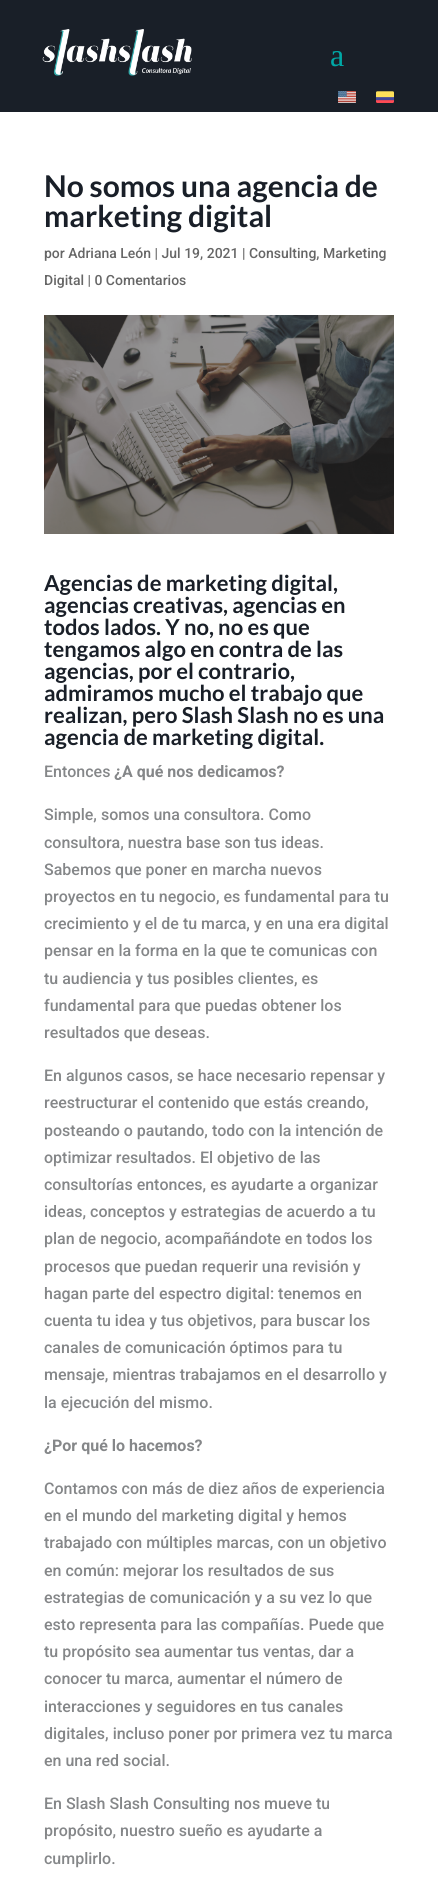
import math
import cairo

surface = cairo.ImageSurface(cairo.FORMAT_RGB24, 438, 1884)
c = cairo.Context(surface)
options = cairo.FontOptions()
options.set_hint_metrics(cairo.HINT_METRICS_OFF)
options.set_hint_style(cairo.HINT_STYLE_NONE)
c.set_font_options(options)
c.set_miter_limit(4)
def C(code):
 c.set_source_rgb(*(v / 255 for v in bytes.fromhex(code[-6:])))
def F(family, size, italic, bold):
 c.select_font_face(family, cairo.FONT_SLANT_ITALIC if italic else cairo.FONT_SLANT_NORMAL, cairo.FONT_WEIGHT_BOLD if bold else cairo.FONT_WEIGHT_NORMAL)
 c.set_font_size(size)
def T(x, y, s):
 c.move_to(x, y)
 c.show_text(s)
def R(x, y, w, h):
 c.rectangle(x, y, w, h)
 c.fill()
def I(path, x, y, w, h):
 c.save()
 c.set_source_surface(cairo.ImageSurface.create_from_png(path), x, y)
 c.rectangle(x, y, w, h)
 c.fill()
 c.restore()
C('191f28')
c.paint()
I('1.png',42,29,150,47)
F('Liberation Serif',32,0,0)
C('00a8a6')
T(330,66,'a')
I('2.png',338,91,18,12)
I('3.png',376,91,18,12)
C('ffffff')
R(0,112,438,1772)
F('Lato',30,0,1)
C('191f28')
T(44,197,'No somos una agencia de')
T(44,227,'marketing digital')
F('Roboto Medium',14,0,0)
C('666666')
T(44,258,'por Adriana León | Jul 19, 2021 | Consulting, Marketing')
T(44,285,'Digital | 0 Comentarios')
I('4.png',44,315,350,219)
F('Lato',22,0,1)
C('191f28')
T(44,591,'Agencias de marketing digital,')
T(44,613,'agencias creativas, agencias en')
T(44,635,'todos lados. Y no, no es que')
T(44,657,'tengamos algo en contra de las')
T(44,679,'agencias, por el contrario,')
T(44,701,'admiramos mucho el trabajo que')
T(44,723,'realizan, pero Slash Slash no es una')
T(44,745,'agencia de marketing digital.')
F('Roboto Medium',16,0,0)
C('858789')
T(44,777,'Entonces')
F('Roboto',16,0,1)
T(114,777,'¿A qué nos dedicamos?')
F('Roboto Medium',16,0,0)
T(44,820,'Simple, somos una consultora. Como')
T(44,848,'consultora, nuestra base son tus ideas.')
T(44,875,'Sabemos que poner en marcha nuevos')
T(44,902,'proyectos en tu negocio, es fundamental para tu')
T(44,929,'crecimiento y el de tu marca, y en una era digital')
T(44,956,'pensar en la forma en la que te comunicas con')
T(44,984,'tu audiencia y tus posibles clientes, es')
T(44,1011,'fundamental para que puedas obtener los')
T(44,1038,'resultados que deseas.')
T(44,1081,'En algunos casos, se hace necesario repensar y')
T(44,1108,'reestructurar el contenido que estás creando,')
T(44,1136,'posteando o pautando, todo con la intención de')
T(44,1163,'optimizar resultados. El objetivo de las')
T(44,1190,'consultorías entonces, es ayudarte a organizar')
T(44,1217,'ideas, conceptos y estrategias de acuerdo a tu')
T(44,1244,'plan de negocio, acompañándote en todos los')
T(44,1272,'procesos que puedan requerir una revisión y')
T(44,1299,'hagan parte del espectro digital: tenemos en')
T(44,1326,'cuenta tu idea y tus objetivos, para buscar los')
T(44,1353,'canales de comunicación óptimos para tu')
T(44,1380,'mensaje, mientras trabajamos en el desarrollo y')
T(44,1408,'la ejecución del mismo.')
F('Roboto',16,0,1)
T(44,1451,'¿Por qué lo hacemos?')
F('Roboto Medium',16,0,0)
T(44,1494,'Contamos con más de diez años de experiencia')
T(44,1521,'en el mundo del marketing digital y hemos')
T(44,1548,'trabajado con múltiples marcas, con un objetivo')
T(44,1576,'en común: mejorar los resultados de sus')
T(44,1603,'estrategias de comunicación y a su vez lo que')
T(44,1630,'esto representa para las compañías. Puede que')
T(44,1657,'tu propósito sea aumentar tus ventas, dar a')
T(44,1684,'conocer tu marca, aumentar el número de')
T(44,1712,'interacciones y seguidores en tus canales')
T(44,1739,'digitales, incluso poner por primera vez tu marca')
T(44,1766,'en una red social.')
T(44,1809,'En Slash Slash Consulting nos mueve tu')
T(44,1836,'propósito, nuestro sueño es ayudarte a')
T(44,1864,'cumplirlo.')
surface.write_to_png('o.png')
